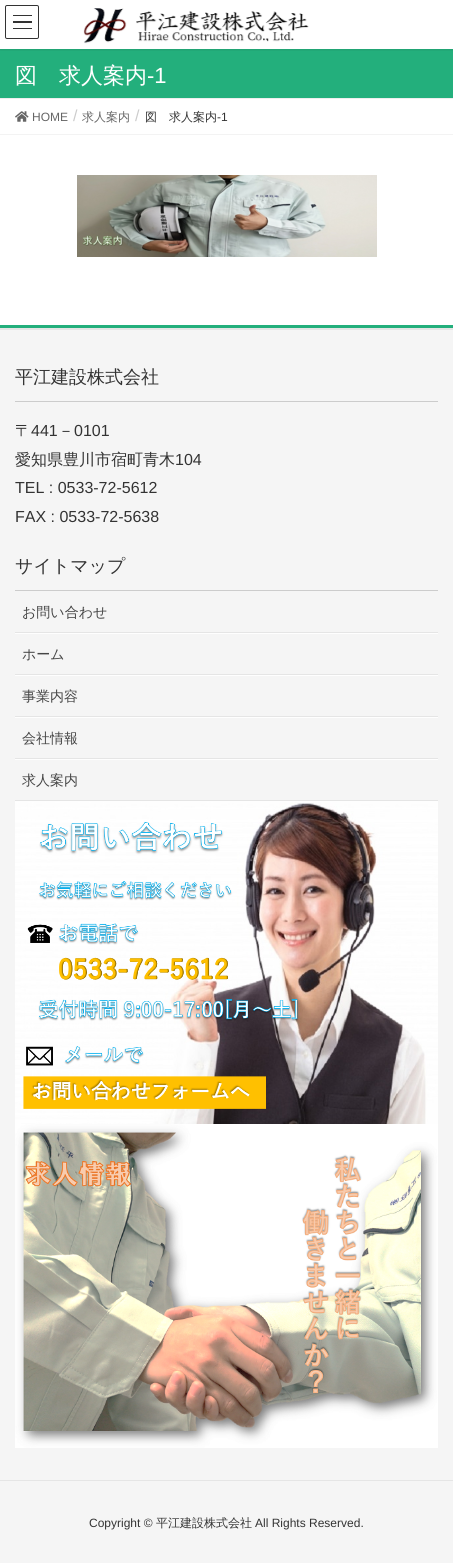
import math
import cairo

surface = cairo.ImageSurface(cairo.FORMAT_RGB24, 453, 1563)
c = cairo.Context(surface)
options = cairo.FontOptions()
options.set_hint_metrics(cairo.HINT_METRICS_OFF)
options.set_hint_style(cairo.HINT_STYLE_NONE)
c.set_font_options(options)
c.set_miter_limit(4)
def C(code):
 c.set_source_rgb(*(v / 255 for v in bytes.fromhex(code[-6:])))
def F(family, size, italic, bold):
 c.select_font_face(family, cairo.FONT_SLANT_ITALIC if italic else cairo.FONT_SLANT_NORMAL, cairo.FONT_WEIGHT_BOLD if bold else cairo.FONT_WEIGHT_NORMAL)
 c.set_font_size(size)
def T(x, y, s):
 c.move_to(x, y)
 c.show_text(s)
def R(x, y, w, h):
 c.rectangle(x, y, w, h)
 c.fill()
def Q(x, y, w, h, r):
 c.new_sub_path()
 for i, (u, v) in enumerate([(x + w - r, y + h - r), (x + r, y + h - r), (x + r, y + r), (x + w - r, y + r)]):
  c.arc(u, v, r, i * math.pi / 2, (i + 1) * math.pi / 2)
 c.close_path()
def S(x, y, w, h, r, blur, alpha):
 c.push_group_with_content(cairo.CONTENT_ALPHA)
 c.set_operator(cairo.OPERATOR_SOURCE)
 for i in range(15, -16, -2):
  e = blur * i / 6
  if min(w, h) + 2 * e > 0:
   c.set_source_rgba(0, 0, 0, alpha * math.erfc((i - 1) / 8.5) / 2)
   Q(x - e, y - e, w + 2 * e, h + 2 * e, max(0, min(r + e + blur * .6, min(w, h) / 2 + e)))
   c.fill()
 c.mask(c.pop_group())
def I(path, x, y, w, h):
 c.save()
 c.set_source_surface(cairo.ImageSurface.create_from_png(path), x, y)
 c.rectangle(x, y, w, h)
 c.fill()
 c.restore()
C('ffffff')
c.paint()
C('23af7c')
R(0,49,453,49)
c.save()
c.rectangle(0,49,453,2)
c.clip()
C('000000')
S(0,1,453,49,0,1.5,.1)
c.restore()
I('1.png',83,8,226,36)
C('333333')
R(13,15,19,1)
R(13,21,19,2)
R(13,28,19,1)
Q(5.5,5.5,33,33,1.5)
c.set_line_width(1)
c.stroke()
C('eeeeee')
R(0,98,453,1)
F('WenQuanYi Zen Hei Medium',22,0,0)
C('ffffff')
T(15,83,'図　求人案内')
F('Liberation Sans',22,0,0)
T(147,83,'-1')
C('f3f3f3')
R(0,134,453,1)
I('2.png',15,111,14,11)
F('Liberation Sans',12,0,0)
C('666666')
T(32,121,'HOME')
F('Liberation Sans',16,0,0)
C('cccccc')
T(73,121,'/')
F('WenQuanYi Zen Hei Medium',12,0,0)
C('666666')
T(82,121,'求人案内')
F('Liberation Sans',16,0,0)
C('cccccc')
T(135,121,'/')
F('WenQuanYi Zen Hei Medium',12,0,0)
C('333333')
T(145,121,'図　求人案内')
F('Liberation Sans',12,0,0)
T(217,121,'-1')
I('3.png',77,175,300,82)
C('f5f5f5')
R(0,330,453,1233)
C('23af7c')
R(0,325,453,3)
C('e5e5e5')
R(0,328,453,2)
C('cccccc')
R(15,401,423,1)
F('WenQuanYi Zen Hei Medium',18,0,0)
C('333333')
T(15,383,'平江建設株式会社')
F('WenQuanYi Zen Hei Medium',16,0,0)
T(15,436,'〒')
F('Liberation Sans',16,0,0)
T(31,436,'441')
F('WenQuanYi Zen Hei Medium',16,0,0)
T(58,436,'－')
F('Liberation Sans',16,0,0)
T(74,436,'0101')
F('WenQuanYi Zen Hei Medium',16,0,0)
T(15,465,'愛知県豊川市宿町青木')
F('Liberation Sans',16,0,0)
T(175,465,'104')
T(15,493,'TEL : 0533-72-5612')
T(15,522,'FAX : 0533-72-5638')
C('cccccc')
R(15,590,423,1)
F('WenQuanYi Zen Hei Medium',18,0,0)
C('333333')
T(15,572,'サイトマップ')
C('fefefe')
R(15,633,423,1)
C('e5e5e5')
R(15,632,423,1)
F('WenQuanYi Zen Hei Medium',14,0,0)
C('464646')
T(22,617,'お問い合わせ')
C('fefefe')
R(15,675,423,1)
C('e5e5e5')
R(15,674,423,1)
C('464646')
T(22,659,'ホーム')
C('fefefe')
R(15,717,423,1)
C('e5e5e5')
R(15,716,423,1)
C('464646')
T(22,701,'事業内容')
C('fefefe')
R(15,759,423,1)
C('e5e5e5')
R(15,758,423,1)
C('464646')
T(22,743,'会社情報')
C('fefefe')
R(15,801,423,1)
C('e5e5e5')
R(15,800,423,1)
C('464646')
T(22,785,'求人案内')
I('4.png',15,802,423,322)
I('5.png',15,1124,423,324)
C('e5e5e5')
R(0,1480,453,1)
F('Liberation Sans',12,0,0)
C('333333')
T(89,1527,'Copyright ©')
F('WenQuanYi Zen Hei Medium',12,0,0)
T(156,1527,'平江建設株式会社')
F('Liberation Sans',12,0,0)
T(255,1527,'All Rights Reserved.')
surface.write_to_png('o.png')
